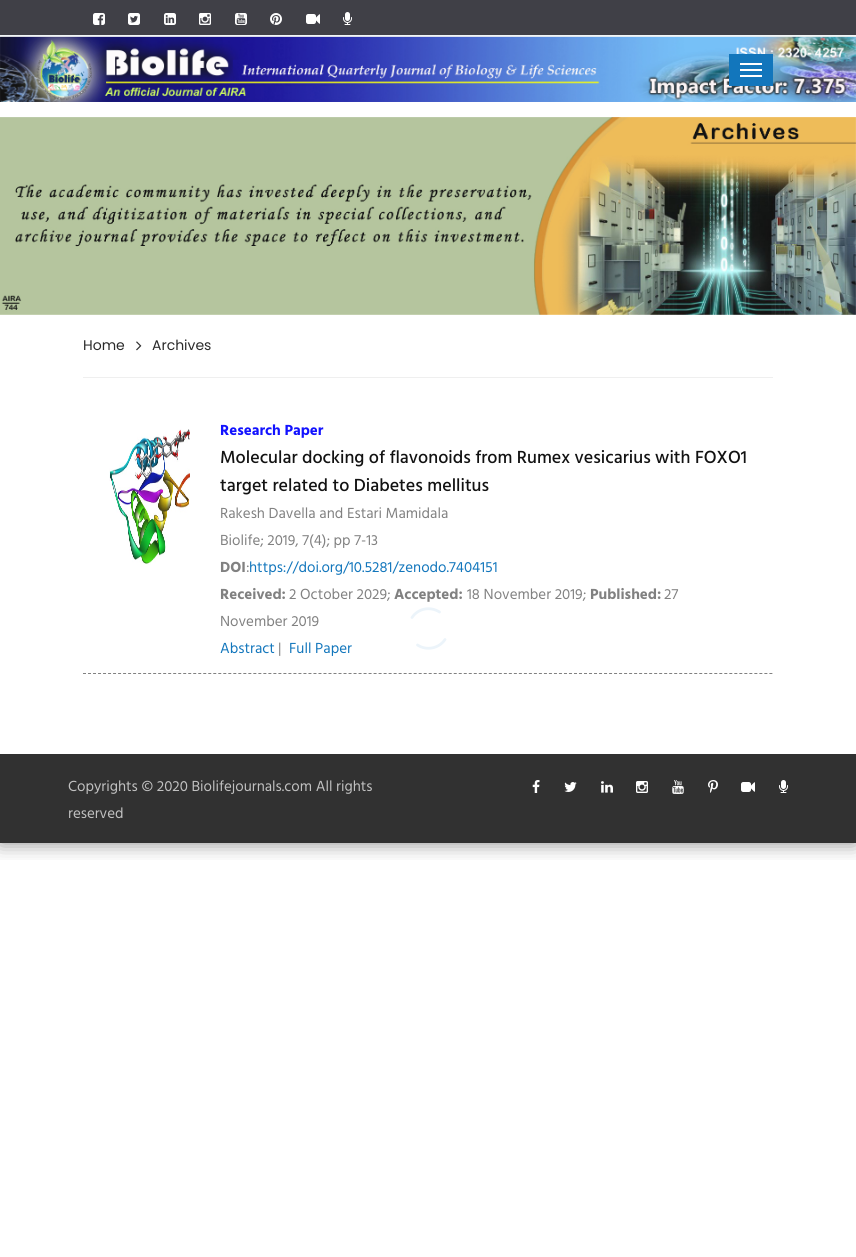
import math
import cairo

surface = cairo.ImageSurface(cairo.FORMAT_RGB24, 856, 1257)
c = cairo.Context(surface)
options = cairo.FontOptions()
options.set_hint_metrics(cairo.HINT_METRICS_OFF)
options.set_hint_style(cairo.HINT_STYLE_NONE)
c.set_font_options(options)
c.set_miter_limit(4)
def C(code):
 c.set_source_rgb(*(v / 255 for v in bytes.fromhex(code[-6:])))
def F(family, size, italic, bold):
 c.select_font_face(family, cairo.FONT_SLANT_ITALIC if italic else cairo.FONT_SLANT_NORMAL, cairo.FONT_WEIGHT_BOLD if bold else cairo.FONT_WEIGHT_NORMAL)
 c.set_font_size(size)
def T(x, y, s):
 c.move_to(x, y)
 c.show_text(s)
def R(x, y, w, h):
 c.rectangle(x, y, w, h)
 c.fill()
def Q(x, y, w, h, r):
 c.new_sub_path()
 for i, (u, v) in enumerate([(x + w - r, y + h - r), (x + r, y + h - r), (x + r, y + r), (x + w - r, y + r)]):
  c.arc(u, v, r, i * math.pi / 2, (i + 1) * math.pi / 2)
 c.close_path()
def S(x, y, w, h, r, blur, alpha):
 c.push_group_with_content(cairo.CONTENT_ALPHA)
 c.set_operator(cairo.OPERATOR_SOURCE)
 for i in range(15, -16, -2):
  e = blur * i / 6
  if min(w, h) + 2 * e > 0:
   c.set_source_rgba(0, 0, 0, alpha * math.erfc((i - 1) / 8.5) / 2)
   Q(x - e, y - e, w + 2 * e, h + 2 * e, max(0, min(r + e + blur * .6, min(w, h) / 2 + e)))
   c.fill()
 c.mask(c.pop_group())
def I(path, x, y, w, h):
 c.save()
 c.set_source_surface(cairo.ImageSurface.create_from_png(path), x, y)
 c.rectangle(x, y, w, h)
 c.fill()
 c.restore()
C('ffffff')
c.paint()
c.save()
c.rectangle(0,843,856,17)
c.clip()
C('121212')
S(0,0,856,843,0,10,.5)
c.restore()
C('404047')
R(0,0,856,35)
I('1.png',93,13,12,12)
I('2.png',128,13,12,12)
I('3.png',164,13,12,12)
I('4.png',199,13,12,12)
I('5.png',235,13,12,12)
I('6.png',270,13,12,12)
I('7.png',306,14,14,10)
I('8.png',343,12,9,13)
I('9.png',0,35,856,67)
C('1276bc')
R(729,54,44,32)
C('ffffff')
R(740,63,22,2)
R(740,69,22,2)
R(740,75,22,2)
I('10.png',0,117,856,198)
C('efefef')
R(83,377,690,1)
F('Poppins',14,0,0)
C('2a2a2a')
T(83,350,'Home')
I('11.png',136,341,6,10)
T(152,350,'Archives')
c.new_path()
c.move_to(83,673.5)
c.line_to(773,673.5)
C('818181')
c.set_line_width(1)
c.set_dash([3,2.01])
c.stroke()
I('12.png',109,429,81,136)
F('Hind',15,0,1)
C('1212ff')
T(220,435,'Research Paper')
F('Hind Medium',18,0,0)
C('121212')
T(220,463,'Molecular docking of flavonoids from Rumex vesicarius with FOXO1')
T(220,491,'target related to Diabetes mellitus')
F('Hind',15,0,0)
C('818181')
T(220,518,'Rakesh Davella and Estari Mamidala')
T(220,545,'Biolife; 2019, 7(4); pp 7-13')
F('Hind',15,0,1)
T(220,572,'DOI')
F('Hind',15,0,0)
T(246,572,':')
C('1276bc')
T(249,572,'https://doi.org/10.5281/zenodo.7404151')
F('Hind',15,0,1)
C('818181')
T(220,599,'Received:')
F('Hind',15,0,0)
T(289,599,'2 October 2029;')
F('Hind',15,0,1)
T(394,599,'Accepted:')
F('Hind',15,0,0)
T(467,599,'18 November 2019;')
F('Hind',15,0,1)
T(590,599,'Published:')
F('Hind',15,0,0)
T(664,599,'27')
T(220,626,'November 2019')
C('1276bc')
T(220,653,'Abstract')
C('818181')
T(278,653,'|')
C('1276bc')
T(289,653,'Full Paper')
c.new_path()
c.move_to(412,617.5)
c.curve_to(418,608.5,430,606,439.5,612)
c.move_to(445,639.5)
c.curve_to(439,648.5,426.5,651,417.5,645)
C('ecf4fa')
c.set_line_width(2.8)
c.set_line_cap(cairo.LINE_CAP_ROUND)
c.set_dash([])
c.stroke()
C('313131')
R(0,754,856,89)
C('c1c1c1')
T(68,791,'Copyrights © 2020 Biolifejournals.com All rights')
T(68,818,'reserved')
I('13.png',532,780,8,13)
I('14.png',564,782,13,10)
I('15.png',601,781,12,12)
I('16.png',636,781,12,12)
I('17.png',672,780,12,14)
I('18.png',708,780,10,13)
I('19.png',741,782,14,10)
I('20.png',779,780,9,13)
surface.write_to_png('o.png')
